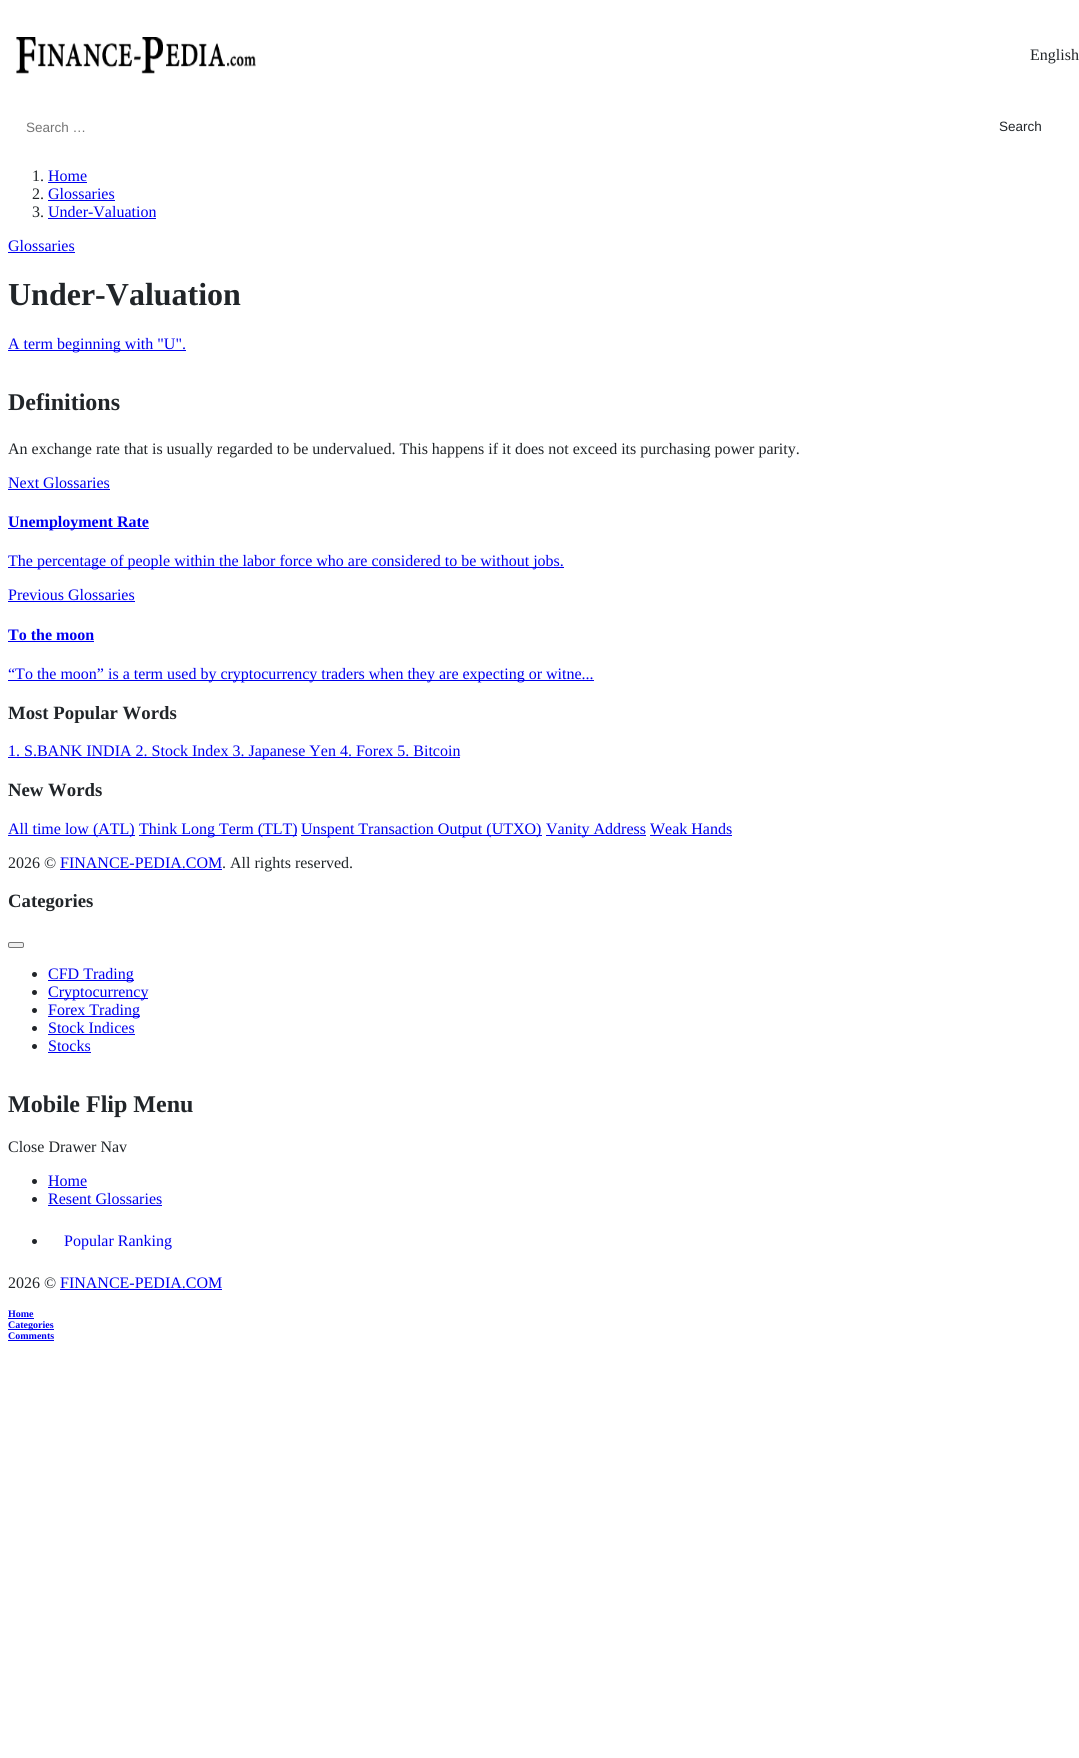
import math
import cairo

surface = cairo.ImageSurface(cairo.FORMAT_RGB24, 1079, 1758)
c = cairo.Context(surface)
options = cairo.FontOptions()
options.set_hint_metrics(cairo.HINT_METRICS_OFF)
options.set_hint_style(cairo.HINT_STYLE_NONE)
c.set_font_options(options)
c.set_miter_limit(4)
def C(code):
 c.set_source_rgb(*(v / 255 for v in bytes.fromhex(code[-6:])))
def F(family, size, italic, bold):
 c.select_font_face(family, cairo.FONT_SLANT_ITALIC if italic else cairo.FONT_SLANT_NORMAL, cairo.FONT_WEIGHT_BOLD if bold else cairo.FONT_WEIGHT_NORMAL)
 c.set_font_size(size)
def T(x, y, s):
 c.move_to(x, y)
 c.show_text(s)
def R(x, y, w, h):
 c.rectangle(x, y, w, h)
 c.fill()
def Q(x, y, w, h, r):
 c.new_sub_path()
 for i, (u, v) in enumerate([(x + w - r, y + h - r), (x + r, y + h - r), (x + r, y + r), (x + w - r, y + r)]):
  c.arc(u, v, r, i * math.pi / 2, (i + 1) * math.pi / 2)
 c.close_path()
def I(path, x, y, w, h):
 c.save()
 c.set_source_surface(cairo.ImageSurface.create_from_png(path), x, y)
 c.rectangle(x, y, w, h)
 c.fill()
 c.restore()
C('ffffff')
c.paint()
I('1.png',16,37,240,37)
F('Liberation Serif',16,0,0)
C('212529')
T(1030,60,'English')
F('Liberation Sans',13.5,0,0)
C('757575')
T(26,132,'Search …')
C('212529')
T(999,131,'Search')
F('Liberation Serif',16,0,0)
T(32,181,'1.')
C('0000ee')
T(48,181,'Home')
R(48,182,39,1)
C('212529')
T(32,199,'2.')
C('0000ee')
T(48,199,'Glossaries')
R(48,200,67,1)
C('212529')
T(32,217,'3.')
C('0000ee')
T(48,217,'Under-Valuation')
R(48,218,108,1)
T(8,251,'Glossaries')
R(8,252,67,1)
F('Liberation Serif',32,0,1)
C('212529')
T(8,305,'Under-Valuation')
C('0000ee')
R(8,350,178,1)
F('Liberation Serif',16,0,0)
T(8,349,'A term beginning with "U".')
F('Liberation Serif',24,0,1)
C('212529')
T(8,410,'Definitions')
F('Liberation Serif',16,0,0)
T(8,454,'An exchange rate that is usually regarded to be undervalued. This happens if it does not exceed its purchasing power parity.')
C('0000ee')
T(8,488,'Next Glossaries')
R(8,489,102,1)
R(8,528,141,1)
F('Liberation Serif',16,0,1)
T(8,527,'Unemployment Rate')
R(8,567,556,1)
F('Liberation Serif',16,0,0)
T(8,566,'The percentage of people within the labor force who are considered to be without jobs.')
T(8,600,'Previous Glossaries')
R(8,601,127,1)
F('Liberation Serif',16,0,1)
T(8,640,'To the moon')
R(8,641,86,1)
R(8,680,586,1)
F('Liberation Serif',16,0,0)
T(8,679,'“To the moon” is a term used by cryptocurrency traders when they are expecting or witne...')
F('Liberation Serif',18.75,0,1)
C('212529')
T(8,719,'Most Popular Words')
C('0000ee')
R(8,757,385,1)
F('Liberation Serif',16,0,0)
T(8,756,'1. S.BANK INDIA 2. Stock Index 3. Japanese Yen 4. Forex 5. Bitcoin')
R(393,757,67,1)
F('Liberation Serif',18.75,0,1)
C('212529')
T(8,796,'New Words')
C('0000ee')
R(8,835,127,1)
F('Liberation Serif',16,0,0)
T(8,834,'All time low (ATL)')
R(139,835,158,1)
T(139,834,'Think Long Term (TLT)')
R(301,835,241,1)
T(301,834,'Unspent Transaction Output (UTXO)')
R(546,835,100,1)
T(546,834,'Vanity Address Weak Hands')
R(650,835,82,1)
C('212529')
T(8,868,'2026 ©')
C('0000ee')
T(60,868,'FINANCE-PEDIA.COM')
R(60,869,162,1)
C('212529')
T(222,868,'. All rights reserved.')
F('Liberation Serif',18.75,0,1)
T(8,907,'Categories')
C('efefef')
Q(8.5,942.5,15,5,1.5)
c.fill_preserve()
C('767676')
c.set_line_width(1)
c.stroke()
C('212529')
c.arc(34.5,974.5,2.5,0,2 * math.pi)
c.fill()
C('0000ee')
R(48,980,86,1)
F('Liberation Serif',16,0,0)
T(48,979,'CFD Trading')
C('212529')
c.new_path()
c.arc(34.5,992.5,2.5,0,2 * math.pi)
c.fill()
C('0000ee')
R(48,998,100,1)
T(48,997,'Cryptocurrency')
C('212529')
c.new_path()
c.arc(34.5,1010.5,2.5,0,2 * math.pi)
c.fill()
C('0000ee')
R(48,1016,92,1)
T(48,1015,'Forex Trading')
C('212529')
c.new_path()
c.arc(34.5,1028.5,2.5,0,2 * math.pi)
c.fill()
C('0000ee')
T(48,1033,'Stock Indices')
R(48,1034,87,1)
C('212529')
c.new_path()
c.arc(34.5,1046.5,2.5,0,2 * math.pi)
c.fill()
C('0000ee')
T(48,1051,'Stocks')
R(48,1052,43,1)
F('Liberation Serif',24,0,1)
C('212529')
T(8,1112,'Mobile Flip Menu')
F('Liberation Serif',16,0,0)
T(8,1152,'Close Drawer Nav')
c.new_path()
c.arc(34.5,1181.5,2.5,0,2 * math.pi)
c.fill()
C('0000ee')
T(48,1186,'Home')
R(48,1187,39,1)
C('212529')
c.new_path()
c.arc(34.5,1199.5,2.5,0,2 * math.pi)
c.fill()
C('0000ee')
T(48,1204,'Resent Glossaries')
R(48,1205,114,1)
C('212529')
c.new_path()
c.arc(34.5,1241.5,2.5,0,2 * math.pi)
c.fill()
C('0000ee')
T(64,1246,'Popular Ranking')
C('212529')
T(8,1288,'2026 ©')
C('0000ee')
T(60,1288,'FINANCE-PEDIA.COM')
R(60,1289,162,1)
F('Liberation Serif',10,0,1)
T(8,1317,'Home')
R(8,1318,26,1)
R(8,1329,46,1)
T(8,1328,'Categories')
T(8,1339,'Comments')
R(8,1340,46,1)
surface.write_to_png('o.png')
